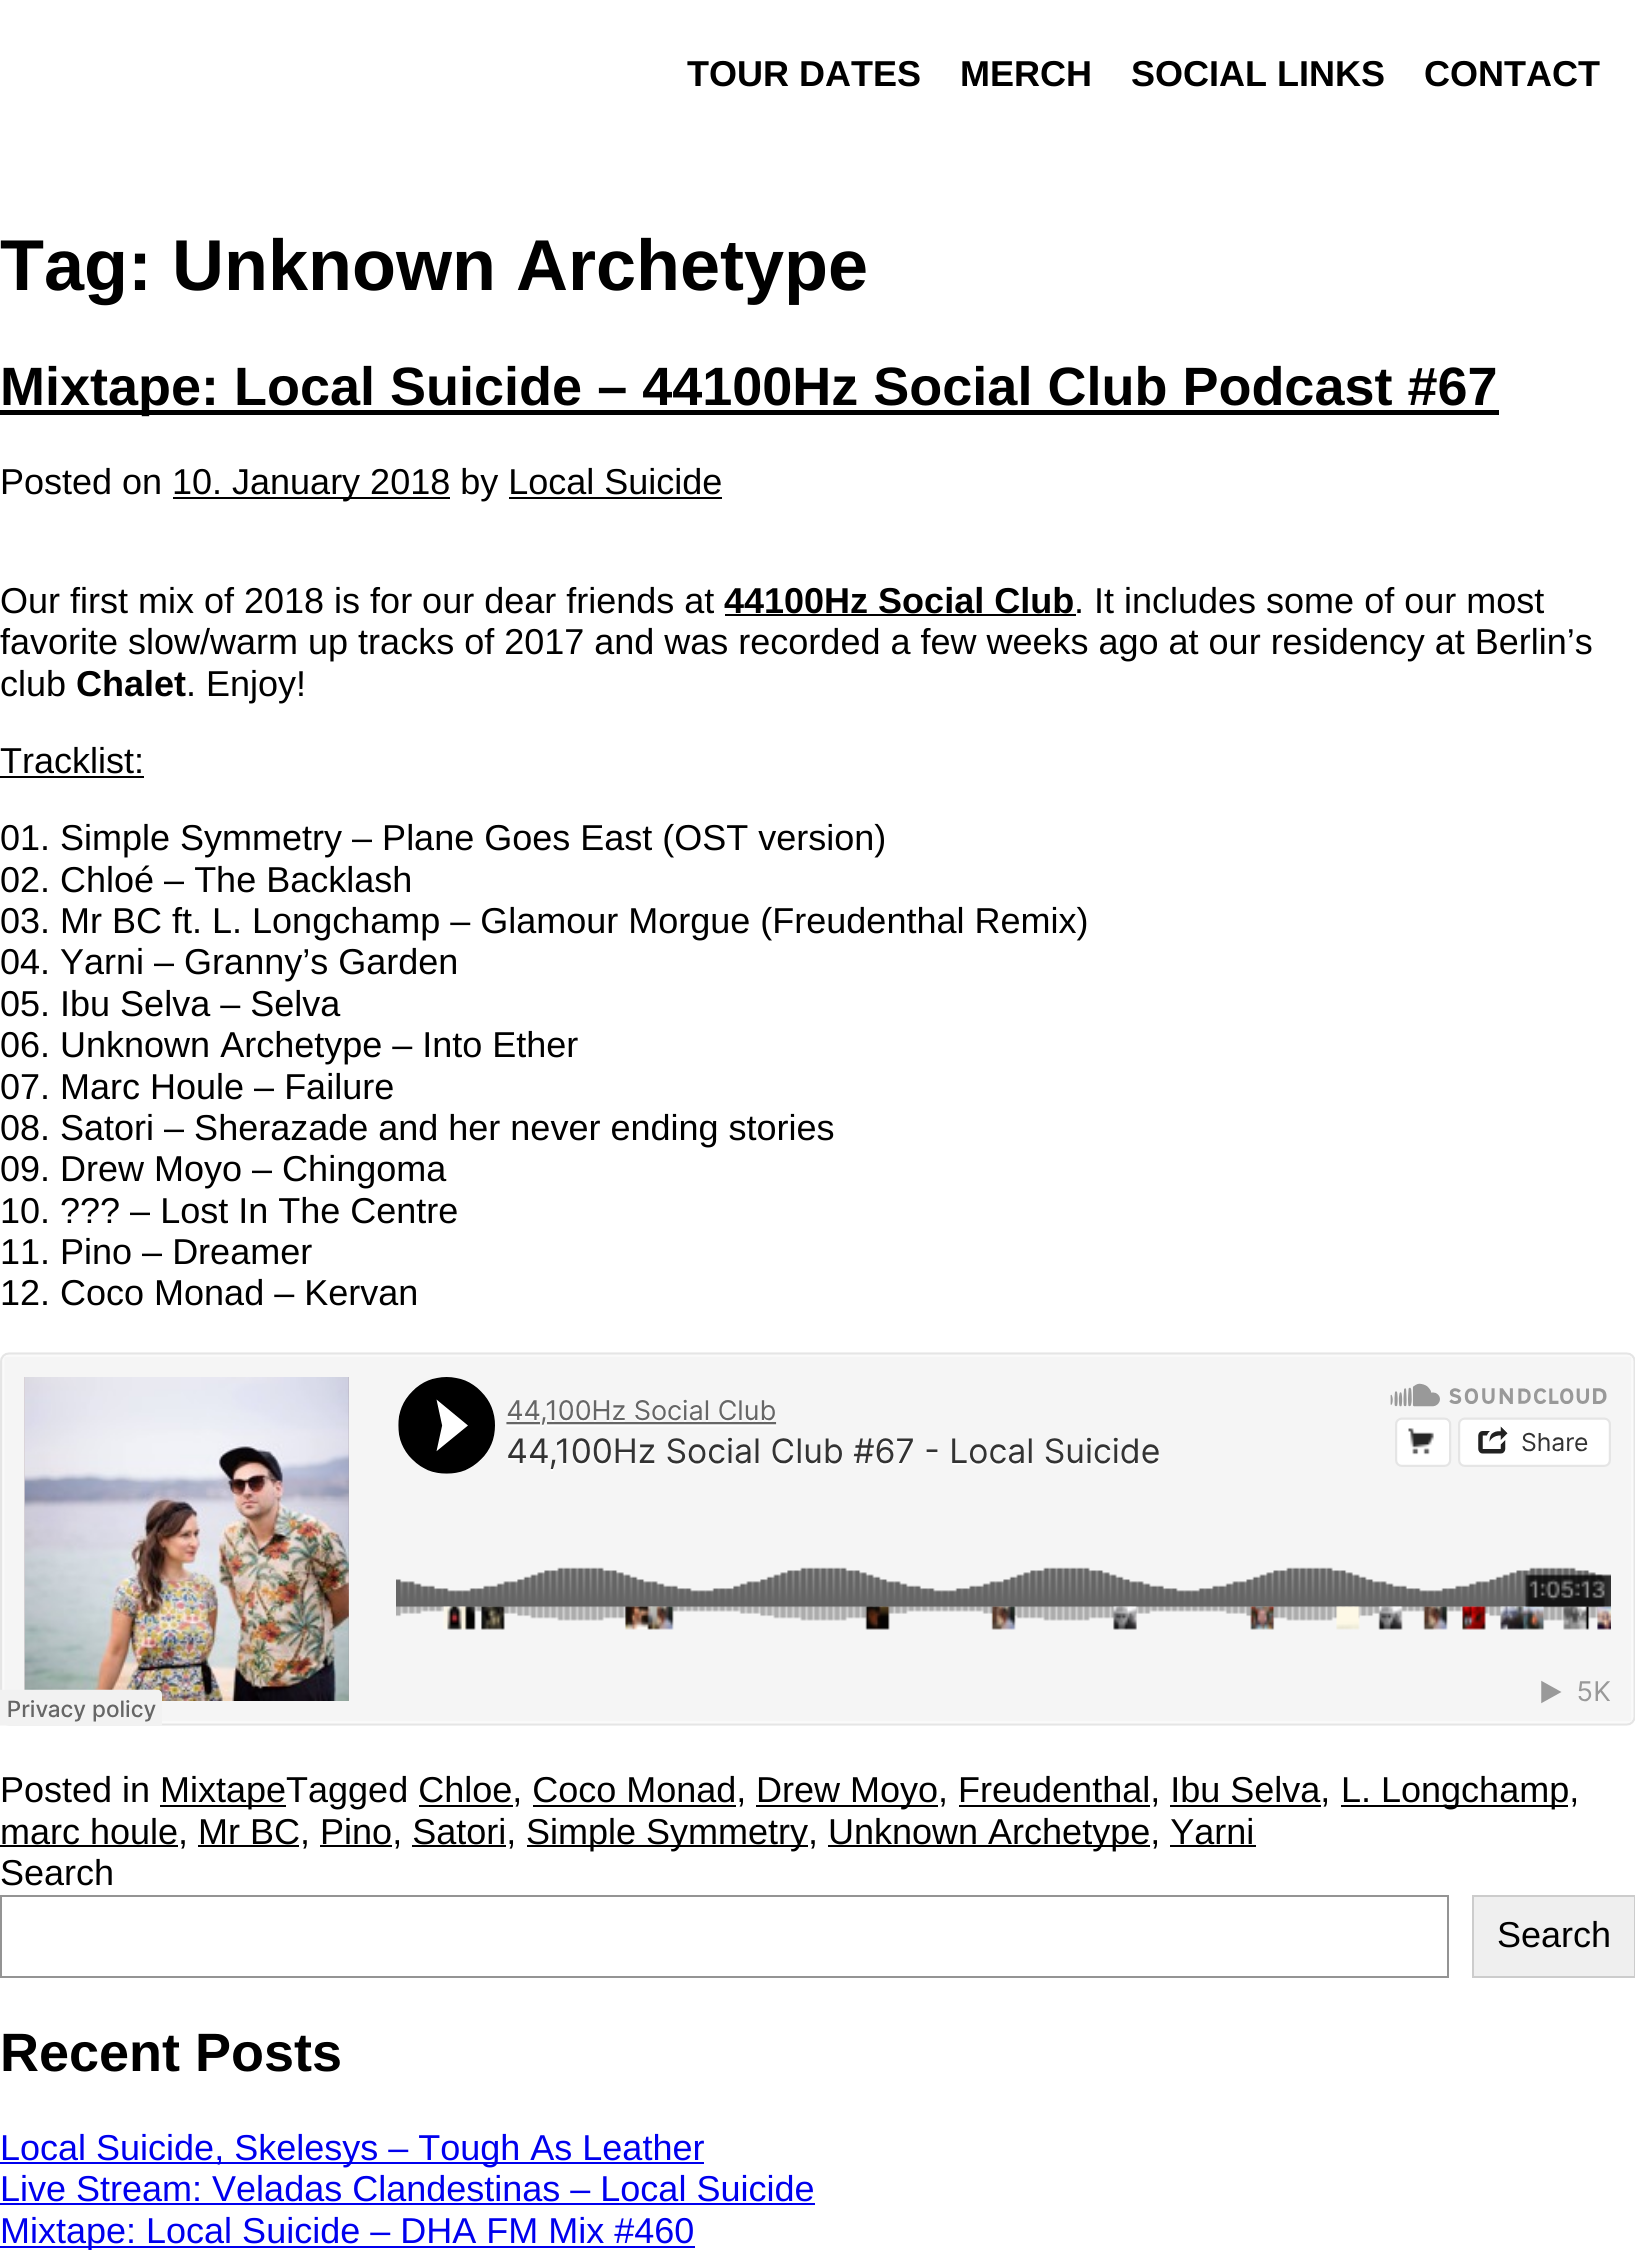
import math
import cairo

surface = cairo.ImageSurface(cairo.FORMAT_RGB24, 1635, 2250)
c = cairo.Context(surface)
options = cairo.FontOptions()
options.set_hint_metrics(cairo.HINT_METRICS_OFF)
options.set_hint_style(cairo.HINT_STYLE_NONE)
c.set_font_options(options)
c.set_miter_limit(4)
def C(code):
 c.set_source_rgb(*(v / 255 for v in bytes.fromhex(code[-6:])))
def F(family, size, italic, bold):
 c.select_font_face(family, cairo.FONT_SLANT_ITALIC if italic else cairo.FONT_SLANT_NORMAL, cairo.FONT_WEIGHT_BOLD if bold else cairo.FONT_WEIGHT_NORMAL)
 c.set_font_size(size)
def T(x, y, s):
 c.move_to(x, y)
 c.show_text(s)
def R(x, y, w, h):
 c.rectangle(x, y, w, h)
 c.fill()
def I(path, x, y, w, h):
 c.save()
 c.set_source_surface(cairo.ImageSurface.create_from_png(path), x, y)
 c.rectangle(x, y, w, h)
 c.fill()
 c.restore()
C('ffffff')
c.paint()
F('Liberation Sans',36,0,1)
C('000000')
T(687,86,'TOUR DATES')
T(960,86,'MERCH')
T(1131,86,'SOCIAL LINKS')
T(1424,86,'CONTACT')
F('Liberation Sans',72,0,1)
T(0,290,'Tag: Unknown Archetype')
R(0,410,1499,5)
F('Liberation Sans',54,0,1)
T(0,405,'Mixtape: Local Suicide – 44100Hz Social Club Podcast #67')
F('Liberation Sans',36,0,0)
T(0,494,'Posted on')
R(173,497,277,2)
T(172,494,'10. January 2018 by Local Suicide')
R(509,497,213,2)
T(0,613,'Our first mix of 2018 is for our dear friends at')
F('Liberation Sans',36,0,1)
T(724,613,'44100Hz Social Club')
R(725,614,351,2)
F('Liberation Sans',36,0,0)
T(1074,613,'. It includes some of our most')
T(0,654,'favorite slow/warm up tracks of 2017 and was recorded a few weeks ago at our residency at Berlin’s')
T(0,696,'club')
F('Liberation Sans',36,0,1)
T(76,696,'Chalet')
F('Liberation Sans',36,0,0)
T(186,696,'. Enjoy!')
T(0,773,'Tracklist:')
R(0,776,144,2)
T(0,850,'01. Simple Symmetry – Plane Goes East (OST version)')
T(0,892,'02. Chloé – The Backlash')
T(0,933,'03. Mr BC ft. L. Longchamp – Glamour Morgue (Freudenthal Remix)')
T(0,974,'04. Yarni – Granny’s Garden')
T(0,1016,'05. Ibu Selva – Selva')
T(0,1057,'06. Unknown Archetype – Into Ether')
T(0,1099,'07. Marc Houle – Failure')
T(0,1140,'08. Satori – Sherazade and her never ending stories')
T(0,1181,'09. Drew Moyo – Chingoma')
T(0,1223,'10. ??? – Lost In The Centre')
T(0,1264,'11. Pino – Dreamer')
T(0,1305,'12. Coco Monad – Kervan')
I('1.png',0,1352,1635,374)
T(0,1802,'Posted in')
R(160,1805,126,2)
T(160,1802,'MixtapeTagged Chloe, Coco Monad,')
R(756,1805,182,2)
T(756,1802,'Drew Moyo, Freudenthal, Ibu Selva,')
R(533,1805,203,2)
R(959,1805,191,2)
R(1170,1805,151,2)
R(1341,1805,227,2)
T(1341,1802,'L. Longchamp,')
R(0,1845,178,2)
T(0,1844,'marc houle, Mr BC, Pino, Satori,')
R(419,1805,94,2)
R(198,1845,101,2)
R(320,1845,72,2)
R(412,1845,94,2)
R(527,1845,281,2)
T(526,1844,'Simple Symmetry,')
R(828,1845,322,2)
T(828,1844,'Unknown Archetype, Yarni')
R(1170,1845,86,2)
T(0,1885,'Search')
c.rectangle(1,1896,1447,81)
C('949494')
c.stroke()
C('efefef')
c.rectangle(1473,1896,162,81)
c.fill_preserve()
C('cccccc')
c.stroke()
C('000000')
T(1497,1947,'Search')
F('Liberation Sans',54,0,1)
T(0,2071,'Recent Posts')
C('0000ee')
R(0,2162,704,2)
F('Liberation Sans',36,0,0)
T(0,2160,'Local Suicide, Skelesys – Tough As Leather')
T(0,2201,'Live Stream: Veladas Clandestinas – Local Suicide')
R(0,2203,815,2)
R(0,2246,695,2)
T(0,2243,'Mixtape: Local Suicide – DHA FM Mix #460')
surface.write_to_png('o.png')
